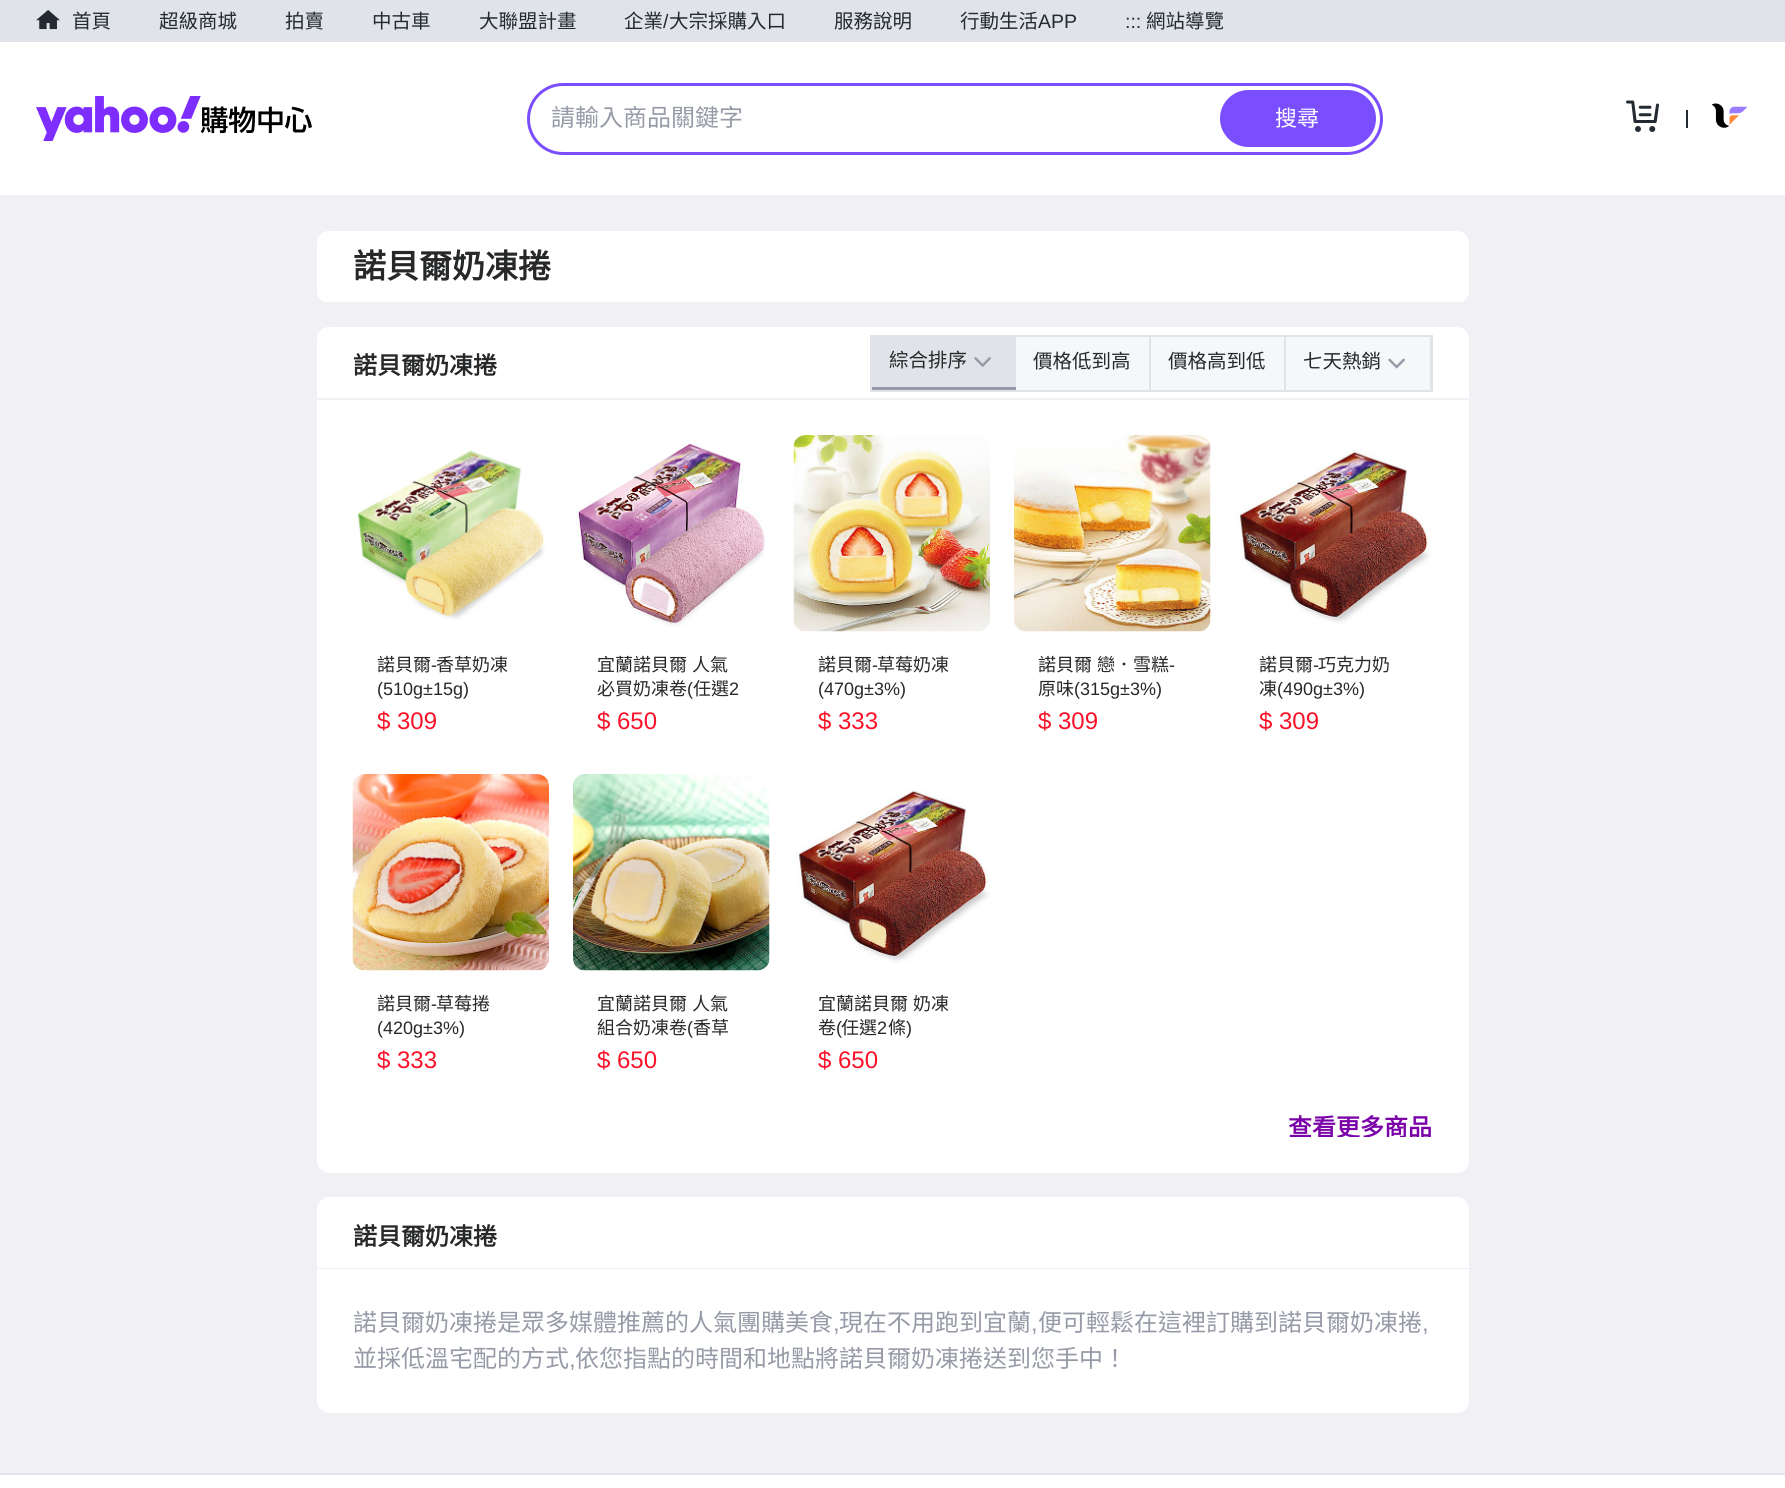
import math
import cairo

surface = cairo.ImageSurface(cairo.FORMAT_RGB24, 1785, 1488)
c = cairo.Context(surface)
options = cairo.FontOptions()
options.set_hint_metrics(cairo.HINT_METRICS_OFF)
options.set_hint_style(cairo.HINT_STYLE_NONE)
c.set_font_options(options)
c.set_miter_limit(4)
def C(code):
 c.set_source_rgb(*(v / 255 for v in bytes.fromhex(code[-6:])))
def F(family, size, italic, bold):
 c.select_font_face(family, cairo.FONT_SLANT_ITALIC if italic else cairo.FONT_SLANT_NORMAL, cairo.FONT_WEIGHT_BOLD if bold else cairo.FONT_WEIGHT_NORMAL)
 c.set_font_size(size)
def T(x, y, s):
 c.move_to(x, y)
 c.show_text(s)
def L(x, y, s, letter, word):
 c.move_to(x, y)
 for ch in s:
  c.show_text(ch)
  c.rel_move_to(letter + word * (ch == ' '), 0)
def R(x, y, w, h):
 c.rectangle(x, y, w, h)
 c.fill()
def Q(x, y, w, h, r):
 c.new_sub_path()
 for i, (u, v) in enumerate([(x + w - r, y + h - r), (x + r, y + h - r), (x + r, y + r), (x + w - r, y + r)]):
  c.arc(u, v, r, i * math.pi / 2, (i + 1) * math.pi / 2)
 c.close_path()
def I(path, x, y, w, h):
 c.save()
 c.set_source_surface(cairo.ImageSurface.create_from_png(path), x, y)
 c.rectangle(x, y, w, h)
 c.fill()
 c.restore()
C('f1f1f5')
c.paint()
C('e0e4e9')
R(0,0,1785,42)
I('1.png',36,10,24,20)
F('Noto Sans CJK TC',19.5,0,0)
C('232a31')
T(72,28,'首頁')
T(159,28,'超級商城')
T(285,28,'拍賣')
T(372,28,'中古車')
T(479,28,'大聯盟計畫')
T(624,28,'企業')
F('Liberation Sans',19.5,0,0)
T(663,28,'/')
F('Noto Sans CJK TC',19.5,0,0)
T(669,28,'大宗採購入口')
T(834,28,'服務說明')
T(960,28,'行動生活')
F('Liberation Sans',19.5,0,0)
T(1038,28,'APP')
T(1125,28,':::')
F('Noto Sans CJK TC',19.5,0,0)
T(1146,28,'網站導覽')
C('ffffff')
R(0,42,1785,153)
I('2.png',36,96,276,45)
Q(528.5,84.5,853,69,34.5)
C('7a4dff')
c.set_line_width(3)
c.stroke()
F('Noto Sans CJK TC',24,0,0)
C('979ba7')
T(551,126,'請輸入商品關鍵字')
C('7a4dff')
Q(1221,91,154,55,27.5)
c.fill_preserve()
c.set_line_width(2)
c.stroke()
F('Noto Sans CJK TC',22,0,0)
C('ffffff')
T(1275,126,'搜尋')
I('3.png',1626,100,33,32)
C('232a31')
R(1686,110,2,18)
I('4.png',1712,103,36,25)
C('ffffff')
Q(317,231,1152,72,12)
c.fill()
C('f1f1f5')
R(323,302,1140,1)
F('Noto Sans CJK TC',33,0,1)
C('26282a')
T(353,278,'諾貝爾奶凍捲')
C('ffffff')
c.new_path()
c.move_to(329,327)
c.line_to(1457,327)
c.curve_to(1463.5,327,1469,332.5,1469,339)
c.line_to(1469,399)
c.line_to(317,399)
c.line_to(317,339)
c.curve_to(317,332.5,322.5,327,329,327)
c.close_path()
c.fill()
c.new_path()
c.move_to(317,399)
c.line_to(1469,399)
c.line_to(1469,1161)
c.curve_to(1469,1167.5,1463.5,1173,1457,1173)
c.line_to(329,1173)
c.curve_to(322.5,1173,317,1167.5,317,1161)
c.close_path()
c.fill()
C('f1f1f5')
R(317,398,1152,2)
F('Noto Sans CJK TC',24,0,1)
C('26282a')
T(353,374,'諾貝爾奶凍捲')
c.rectangle(871,336,561,55)
C('e0e4e9')
c.stroke()
R(872,337,144,50)
C('979ba7')
R(872,387,144,3)
F('Noto Sans CJK TC',19.5,0,0)
C('26282a')
T(889,367,'綜合排序')
I('5.png',974,357,17,11)
c.set_source_rgba(0.878,0.894,0.914,0.3)
R(1016,337,133,53)
C('e0e4e9')
R(1149,336,2,54)
C('26282a')
T(1033,368,'價格低到高')
c.set_source_rgba(0.878,0.894,0.914,0.3)
R(1151,337,133,53)
C('e0e4e9')
R(1284,336,2,54)
C('26282a')
T(1168,368,'價格高到低')
c.set_source_rgba(0.878,0.894,0.914,0.3)
R(1286,337,144,53)
C('e0e4e9')
R(1430,336,1,54)
C('26282a')
T(1303,368,'七天熱銷')
I('6.png',1388,358,17,11)
I('7.png',356,450,189,170)
F('Noto Sans CJK TC',18,0,0)
T(377,671,'諾貝爾')
F('Liberation Sans',18,0,0)
T(431,671,'-')
F('Noto Sans CJK TC',18,0,0)
T(436,671,'香草奶凍')
F('Liberation Sans',18,0,0)
T(377,695,'(510g±15g)')
F('Liberation Sans',24,0,0)
C('fa1229')
T(377,729,'$ 309')
I('8.png',573,443,192,184)
F('Noto Sans CJK TC',18,0,0)
C('26282a')
L(597,671,'宜蘭諾貝爾 人氣',0,1)
T(597,695,'必買奶凍卷')
F('Liberation Sans',18,0,0)
T(687,695,'(')
F('Noto Sans CJK TC',18,0,0)
T(693,695,'任選')
F('Liberation Sans',18,0,0)
T(729,695,'2')
F('Liberation Sans',24,0,0)
C('fa1229')
T(597,729,'$ 650')
I('9.png',793,435,197,197)
F('Noto Sans CJK TC',18,0,0)
C('26282a')
T(818,671,'諾貝爾')
F('Liberation Sans',18,0,0)
T(872,671,'-')
F('Noto Sans CJK TC',18,0,0)
T(877,671,'草莓奶凍')
F('Liberation Sans',18,0,0)
T(818,695,'(470g±3%)')
F('Liberation Sans',24,0,0)
C('fa1229')
T(818,729,'$ 333')
I('10.png',1014,435,197,197)
F('Noto Sans CJK TC',18,0,0)
C('26282a')
L(1038,671,'諾貝爾 戀．雪糕',0,1)
F('Liberation Sans',18,0,0)
T(1169,671,'-')
F('Noto Sans CJK TC',18,0,0)
T(1038,695,'原味')
F('Liberation Sans',18,0,0)
T(1074,695,'(315g±3%)')
F('Liberation Sans',24,0,0)
C('fa1229')
T(1038,729,'$ 309')
I('11.png',1235,450,196,174)
F('Noto Sans CJK TC',18,0,0)
C('26282a')
T(1259,671,'諾貝爾')
F('Liberation Sans',18,0,0)
T(1313,671,'-')
F('Noto Sans CJK TC',18,0,0)
T(1318,671,'巧克力奶')
T(1259,695,'凍')
F('Liberation Sans',18,0,0)
T(1277,695,'(490g±3%)')
F('Liberation Sans',24,0,0)
C('fa1229')
T(1259,729,'$ 309')
I('12.png',352,774,197,197)
F('Noto Sans CJK TC',18,0,0)
C('26282a')
T(377,1010,'諾貝爾')
F('Liberation Sans',18,0,0)
T(431,1010,'-')
F('Noto Sans CJK TC',18,0,0)
T(436,1010,'草莓捲')
F('Liberation Sans',18,0,0)
T(377,1034,'(420g±3%)')
F('Liberation Sans',24,0,0)
C('fa1229')
T(377,1068,'$ 333')
I('13.png',573,774,197,197)
F('Noto Sans CJK TC',18,0,0)
C('26282a')
L(597,1010,'宜蘭諾貝爾 人氣',0,1)
T(597,1034,'組合奶凍卷')
F('Liberation Sans',18,0,0)
T(687,1034,'(')
F('Noto Sans CJK TC',18,0,0)
T(693,1034,'香草')
F('Liberation Sans',24,0,0)
C('fa1229')
T(597,1068,'$ 650')
I('11.png',794,789,196,174)
F('Noto Sans CJK TC',18,0,0)
C('26282a')
L(818,1010,'宜蘭諾貝爾 奶凍',0,1)
T(818,1034,'卷')
F('Liberation Sans',18,0,0)
T(836,1034,'(')
F('Noto Sans CJK TC',18,0,0)
T(841,1034,'任選')
F('Liberation Sans',18,0,0)
T(877,1034,'2')
F('Noto Sans CJK TC',18,0,0)
T(888,1034,'條')
F('Liberation Sans',18,0,0)
T(906,1034,')')
F('Liberation Sans',24,0,0)
C('fa1229')
T(818,1068,'$ 650')
c.save()
c.rectangle(1289,1107,144,30)
c.clip()
F('Noto Sans CJK TC',24,0,1)
C('7a00a7')
T(1288,1136,'查看更多商品')
c.restore()
C('ffffff')
c.new_path()
c.move_to(329,1197)
c.line_to(1457,1197)
c.curve_to(1463.5,1197,1469,1202.5,1469,1209)
c.line_to(1469,1269)
c.line_to(317,1269)
c.line_to(317,1209)
c.curve_to(317,1202.5,322.5,1197,329,1197)
c.close_path()
c.fill()
C('f1f1f5')
R(317,1268,1152,1)
F('Noto Sans CJK TC',24,0,1)
C('26282a')
T(353,1245,'諾貝爾奶凍捲')
C('ffffff')
c.new_path()
c.move_to(317,1269)
c.line_to(1469,1269)
c.line_to(1469,1401)
c.curve_to(1469,1407.5,1463.5,1413,1457,1413)
c.line_to(329,1413)
c.curve_to(322.5,1413,317,1407.5,317,1401)
c.close_path()
c.fill()
F('Noto Sans CJK TC',24,0,0)
C('979ba7')
T(353,1331,'諾貝爾奶凍捲是眾多媒體推薦的人氣團購美食')
F('Liberation Sans',24,0,0)
T(833,1331,',')
F('Noto Sans CJK TC',24,0,0)
T(839,1331,'現在不用跑到宜蘭')
F('Liberation Sans',24,0,0)
T(1031,1331,',')
F('Noto Sans CJK TC',24,0,0)
T(1038,1331,'便可輕鬆在這裡訂購到諾貝爾奶凍捲')
F('Liberation Sans',24,0,0)
T(1422,1331,',')
F('Noto Sans CJK TC',24,0,0)
T(353,1367,'並採低溫宅配的方式')
F('Liberation Sans',24,0,0)
T(569,1367,',')
F('Noto Sans CJK TC',24,0,0)
T(575,1367,'依您指點的時間和地點將諾貝爾奶凍捲送到您手中！')
C('ffffff')
R(0,1475,1785,13)
C('e0e4e9')
R(0,1473,1785,2)
surface.write_to_png('o.png')
